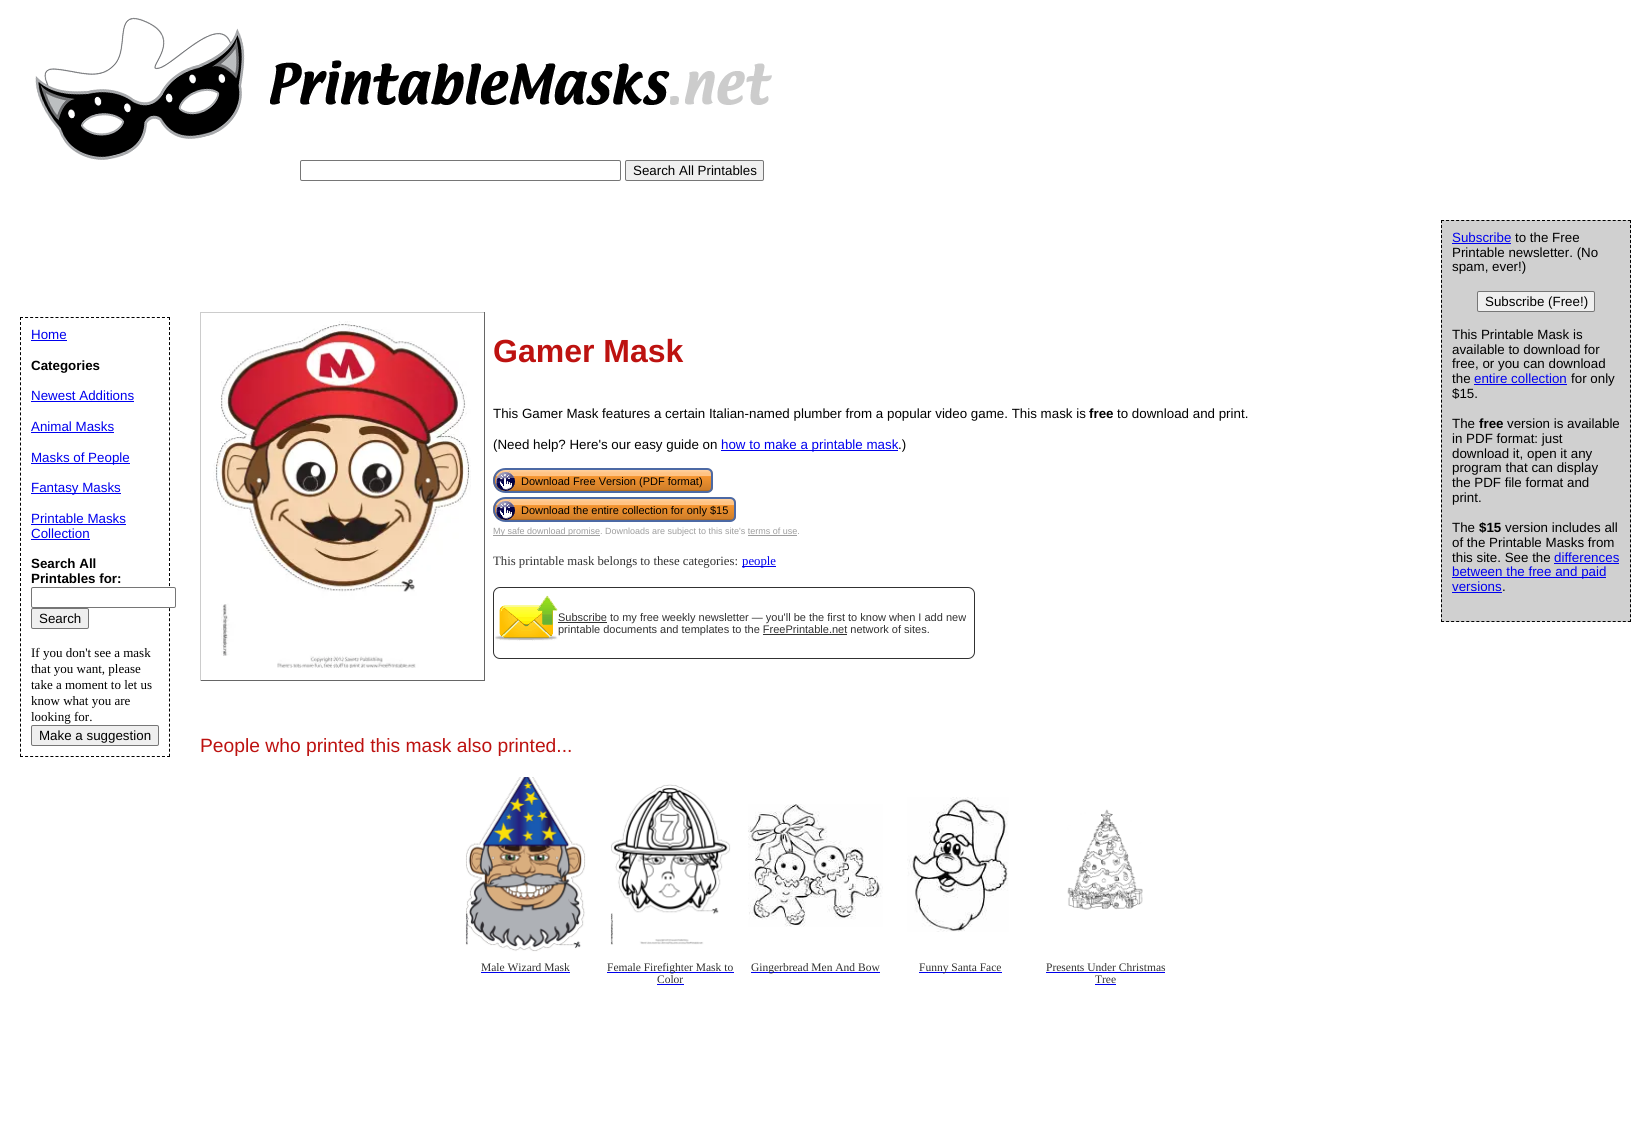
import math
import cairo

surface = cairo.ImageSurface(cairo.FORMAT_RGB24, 1651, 1134)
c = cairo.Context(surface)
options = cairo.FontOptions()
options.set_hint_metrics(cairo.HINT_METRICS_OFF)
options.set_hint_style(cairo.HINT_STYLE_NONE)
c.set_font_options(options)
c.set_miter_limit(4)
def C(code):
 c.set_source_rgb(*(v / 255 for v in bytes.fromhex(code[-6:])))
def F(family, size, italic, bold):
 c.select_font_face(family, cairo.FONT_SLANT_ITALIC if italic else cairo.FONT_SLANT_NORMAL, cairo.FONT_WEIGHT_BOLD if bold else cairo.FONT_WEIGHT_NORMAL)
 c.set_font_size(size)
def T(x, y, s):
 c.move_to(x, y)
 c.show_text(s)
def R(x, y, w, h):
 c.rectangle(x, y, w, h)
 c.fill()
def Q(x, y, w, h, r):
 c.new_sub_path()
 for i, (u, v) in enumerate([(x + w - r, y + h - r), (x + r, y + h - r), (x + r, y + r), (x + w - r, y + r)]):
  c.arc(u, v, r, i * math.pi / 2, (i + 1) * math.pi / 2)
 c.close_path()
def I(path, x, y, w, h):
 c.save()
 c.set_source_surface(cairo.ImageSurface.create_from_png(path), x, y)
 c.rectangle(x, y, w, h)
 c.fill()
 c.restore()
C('ffffff')
c.paint()
I('1.png',35,17,737,143)
Q(300.5,160.5,320,20,1.5)
C('767676')
c.set_line_width(1)
c.stroke()
C('efefef')
Q(625.5,160.5,138,20,1.5)
c.fill_preserve()
C('767676')
c.stroke()
F('Liberation Sans',13.35,0,0)
C('000000')
T(633,175,'Search All Printables')
c.new_path()
c.move_to(20,317.5)
c.line_to(170,317.5)
c.set_dash([3,2.07])
c.stroke()
c.new_path()
c.move_to(169.5,317)
c.line_to(169.5,757)
c.set_dash([3,2.02])
c.stroke()
c.new_path()
c.move_to(20,756.5)
c.line_to(170,756.5)
c.set_dash([3,2.07])
c.stroke()
c.new_path()
c.move_to(20.5,317)
c.line_to(20.5,757)
c.set_dash([3,2.02])
c.stroke()
C('0000ee')
T(31,339,'Home')
R(31,340,36,1)
F('Liberation Sans',13.35,0,1)
C('000000')
T(31,370,'Categories')
F('Liberation Sans',13.35,0,0)
C('0000ee')
T(31,400,'Newest Additions')
R(31,401,103,1)
T(31,431,'Animal Masks')
R(31,432,83,1)
R(31,463,99,1)
T(31,462,'Masks of People')
R(31,493,90,1)
T(31,492,'Fantasy Masks')
T(31,523,'Printable Masks')
R(31,524,95,1)
T(31,538,'Collection')
R(31,539,59,1)
F('Liberation Sans',13.35,0,1)
C('000000')
T(31,568,'Search All')
T(31,583,'Printables for:')
C('ffffff')
Q(31.5,587.5,144,20,1.5)
c.fill_preserve()
C('767676')
c.set_dash([])
c.stroke()
C('efefef')
Q(31.5,608.5,57,20,1.5)
c.fill_preserve()
C('767676')
c.stroke()
F('Liberation Sans',13.35,0,0)
C('000000')
T(39,623,'Search')
F('Liberation Serif',13,0,0)
T(31,657,'If you don\'t see a mask')
T(31,673,'that you want, please')
T(31,689,'take a moment to let us')
T(31,705,'know what you are')
T(31,721,'looking for.')
C('efefef')
Q(31.5,725.5,127,20,1.5)
c.fill_preserve()
C('767676')
c.stroke()
F('Liberation Sans',13.35,0,0)
C('000000')
T(39,740,'Make a suggestion')
C('cccccc')
R(200,312,285,1)
C('666666')
R(484,312,1,369)
R(200,680,285,1)
C('cccccc')
R(200,312,1,369)
I('2.png',213,321,258,347)
F('Liberation Sans',32,0,1)
C('bd1210')
T(493,362,'Gamer Mask')
F('Liberation Sans',13.35,0,0)
C('000000')
T(493,418,'This Gamer Mask features a certain Italian-named plumber from a popular video game. This mask is')
F('Liberation Sans',13.35,0,1)
T(1089,418,'free')
F('Liberation Sans',13.35,0,0)
T(1117,418,'to download and print.')
T(493,449,'(Need help? Here\'s our easy guide on')
C('0000ee')
R(721,450,177,1)
T(721,449,'how to make a printable mask')
C('000000')
T(898,449,'.)')
c.save()
c.new_path()
c.move_to(505.5,468)
c.line_to(707,468)
c.curve_to(710.5,468,713,470.5,713,474)
c.line_to(713,487)
c.curve_to(713,490.5,710.5,493,707,493)
c.line_to(505.5,493)
c.curve_to(498.5,493,493,487.5,493,480.5)
c.curve_to(493,473.5,498.5,468,505.5,468)
c.close_path()
c.clip()
gradient = cairo.LinearGradient(603,470,603,491)
gradient.add_color_stop_rgba(0,1,0.816,0.62,1)
gradient.add_color_stop_rgba(.15,1,0.765,0.518,1)
gradient.add_color_stop_rgba(.3,1,0.765,0.518,1)
gradient.add_color_stop_rgba(.31,0.957,0.584,0.188,1)
gradient.add_color_stop_rgba(.94,0.816,0.494,0.161,1)
gradient.add_color_stop_rgba(.95,0.749,0.455,0.145,1)
gradient.add_color_stop_rgba(1,0.643,0.392,0.125,1)
c.set_source(gradient)
R(493,470,220,21)
c.restore()
c.new_path()
c.move_to(505.5,469)
c.line_to(707,469)
c.curve_to(710,469,712,471,712,474)
c.line_to(712,487)
c.curve_to(712,490,710,492,707,492)
c.line_to(505.5,492)
c.curve_to(499,492,494,487,494,480.5)
c.curve_to(494,474,499,469,505.5,469)
c.close_path()
C('4c69a4')
c.set_line_width(2)
c.stroke()
I('3.png',496,471,19,20)
F('Liberation Sans',11,0,0)
C('000000')
T(521,485,'Download Free Version (PDF format)')
c.save()
c.new_path()
c.move_to(505.5,497)
c.line_to(730,497)
c.curve_to(733.5,497,736,499.5,736,503)
c.line_to(736,516)
c.curve_to(736,519.5,733.5,522,730,522)
c.line_to(505.5,522)
c.curve_to(498.5,522,493,516.5,493,509.5)
c.curve_to(493,502.5,498.5,497,505.5,497)
c.close_path()
c.clip()
gradient = cairo.LinearGradient(615,499,615,520)
gradient.add_color_stop_rgba(0,1,0.816,0.62,1)
gradient.add_color_stop_rgba(.15,1,0.765,0.518,1)
gradient.add_color_stop_rgba(.3,1,0.765,0.518,1)
gradient.add_color_stop_rgba(.31,0.957,0.584,0.188,1)
gradient.add_color_stop_rgba(.94,0.816,0.494,0.161,1)
gradient.add_color_stop_rgba(.95,0.749,0.455,0.145,1)
gradient.add_color_stop_rgba(1,0.643,0.392,0.125,1)
c.set_source(gradient)
R(493,499,243,21)
c.restore()
c.new_path()
c.move_to(505.5,498)
c.line_to(730,498)
c.curve_to(733,498,735,500,735,503)
c.line_to(735,516)
c.curve_to(735,519,733,521,730,521)
c.line_to(505.5,521)
c.curve_to(499,521,494,516,494,509.5)
c.curve_to(494,503,499,498,505.5,498)
c.close_path()
C('4c69a4')
c.stroke()
I('3.png',496,500,19,20)
C('000000')
T(521,514,'Download the entire collection for only $15')
C('9e9e9e')
R(493,535,107,1)
F('Liberation Sans',9,0,0)
T(493,534,'My safe download promise. Downloads are subject to this site\'s terms of use.')
R(748,535,49,1)
F('Liberation Serif',12.75,0,0)
C('313131')
T(493,565,'This printable mask belongs to these categories:')
C('0000ee')
R(742,566,34,1)
T(742,565,'people')
Q(493.5,587.5,481,71,6.5)
C('313131')
c.set_line_width(1)
c.stroke()
I('4.png',495,595,63,46)
R(558,622,49,1)
F('Liberation Sans',11,0,0)
T(558,621,'Subscribe to my free weekly newsletter — you\'ll be the first to know when I add new')
T(558,633,'printable documents and templates to the FreePrintable.net network of sites.')
R(763,634,84,1)
F('Liberation Sans',19.25,0,0)
C('bd1210')
T(200,752,'People who printed this mask also printed...')
I('5.png',465,777,121,175)
F('Liberation Serif',11.5,0,0)
C('313131')
T(481,971,'Male Wizard Mask')
C('0000ee')
R(481,972,89,1)
I('6.png',610,784,121,161)
R(607,972,127,1)
C('313131')
T(607,971,'Female Firefighter Mask to')
T(657,983,'Color')
C('0000ee')
R(657,984,27,1)
I('7.png',748,804,135,123)
R(751,972,129,1)
C('313131')
T(751,971,'Gingerbread Men And Bow')
I('8.png',907,797,102,135)
C('0000ee')
R(919,972,83,1)
C('313131')
T(919,971,'Funny Santa Face')
I('9.png',1067,809,76,101)
T(1046,971,'Presents Under Christmas')
C('0000ee')
R(1046,972,119,1)
C('313131')
T(1095,983,'Tree')
C('0000ee')
R(1095,984,21,1)
C('d0d0d0')
R(1441,220,190,402)
c.new_path()
c.move_to(1441,220.5)
c.line_to(1631,220.5)
C('000000')
c.set_dash([3,2.05])
c.stroke()
c.new_path()
c.move_to(1630.5,220)
c.line_to(1630.5,622)
c.set_dash([3,1.99])
c.stroke()
c.new_path()
c.move_to(1441,621.5)
c.line_to(1631,621.5)
c.set_dash([3,2.05])
c.stroke()
c.new_path()
c.move_to(1441.5,220)
c.line_to(1441.5,622)
c.set_dash([3,1.99])
c.stroke()
F('Liberation Sans',13.35,0,0)
C('0000ee')
T(1452,242,'Subscribe')
R(1452,243,59,1)
C('000000')
T(1515,242,'to the Free')
T(1452,257,'Printable newsletter. (No')
T(1452,271,'spam, ever!)')
C('efefef')
Q(1477.5,291.5,117,20,1.5)
c.fill_preserve()
C('767676')
c.set_dash([])
c.stroke()
C('000000')
T(1485,306,'Subscribe (Free!)')
T(1452,339,'This Printable Mask is')
T(1452,354,'available to download for')
T(1452,368,'free, or you can download')
T(1452,383,'the')
C('0000ee')
T(1474,383,'entire collection')
R(1474,384,93,1)
C('000000')
T(1571,383,'for only')
T(1452,398,'$15.')
T(1452,428,'The')
F('Liberation Sans',13.35,0,1)
T(1479,428,'free')
F('Liberation Sans',13.35,0,0)
T(1507,428,'version is available')
T(1452,443,'in PDF format: just')
T(1452,458,'download it, open it any')
T(1452,472,'program that can display')
T(1452,487,'the PDF file format and')
T(1452,502,'print.')
T(1452,532,'The')
F('Liberation Sans',13.35,0,1)
T(1479,532,'$15')
F('Liberation Sans',13.35,0,0)
T(1505,532,'version includes all')
T(1452,547,'of the Printable Masks from')
T(1452,562,'this site. See the')
C('0000ee')
T(1554,562,'differences')
R(1554,563,65,1)
R(1452,577,154,1)
T(1452,576,'between the free and paid')
T(1452,591,'versions')
R(1452,592,50,1)
C('000000')
T(1502,591,'.')
surface.write_to_png('o.png')
